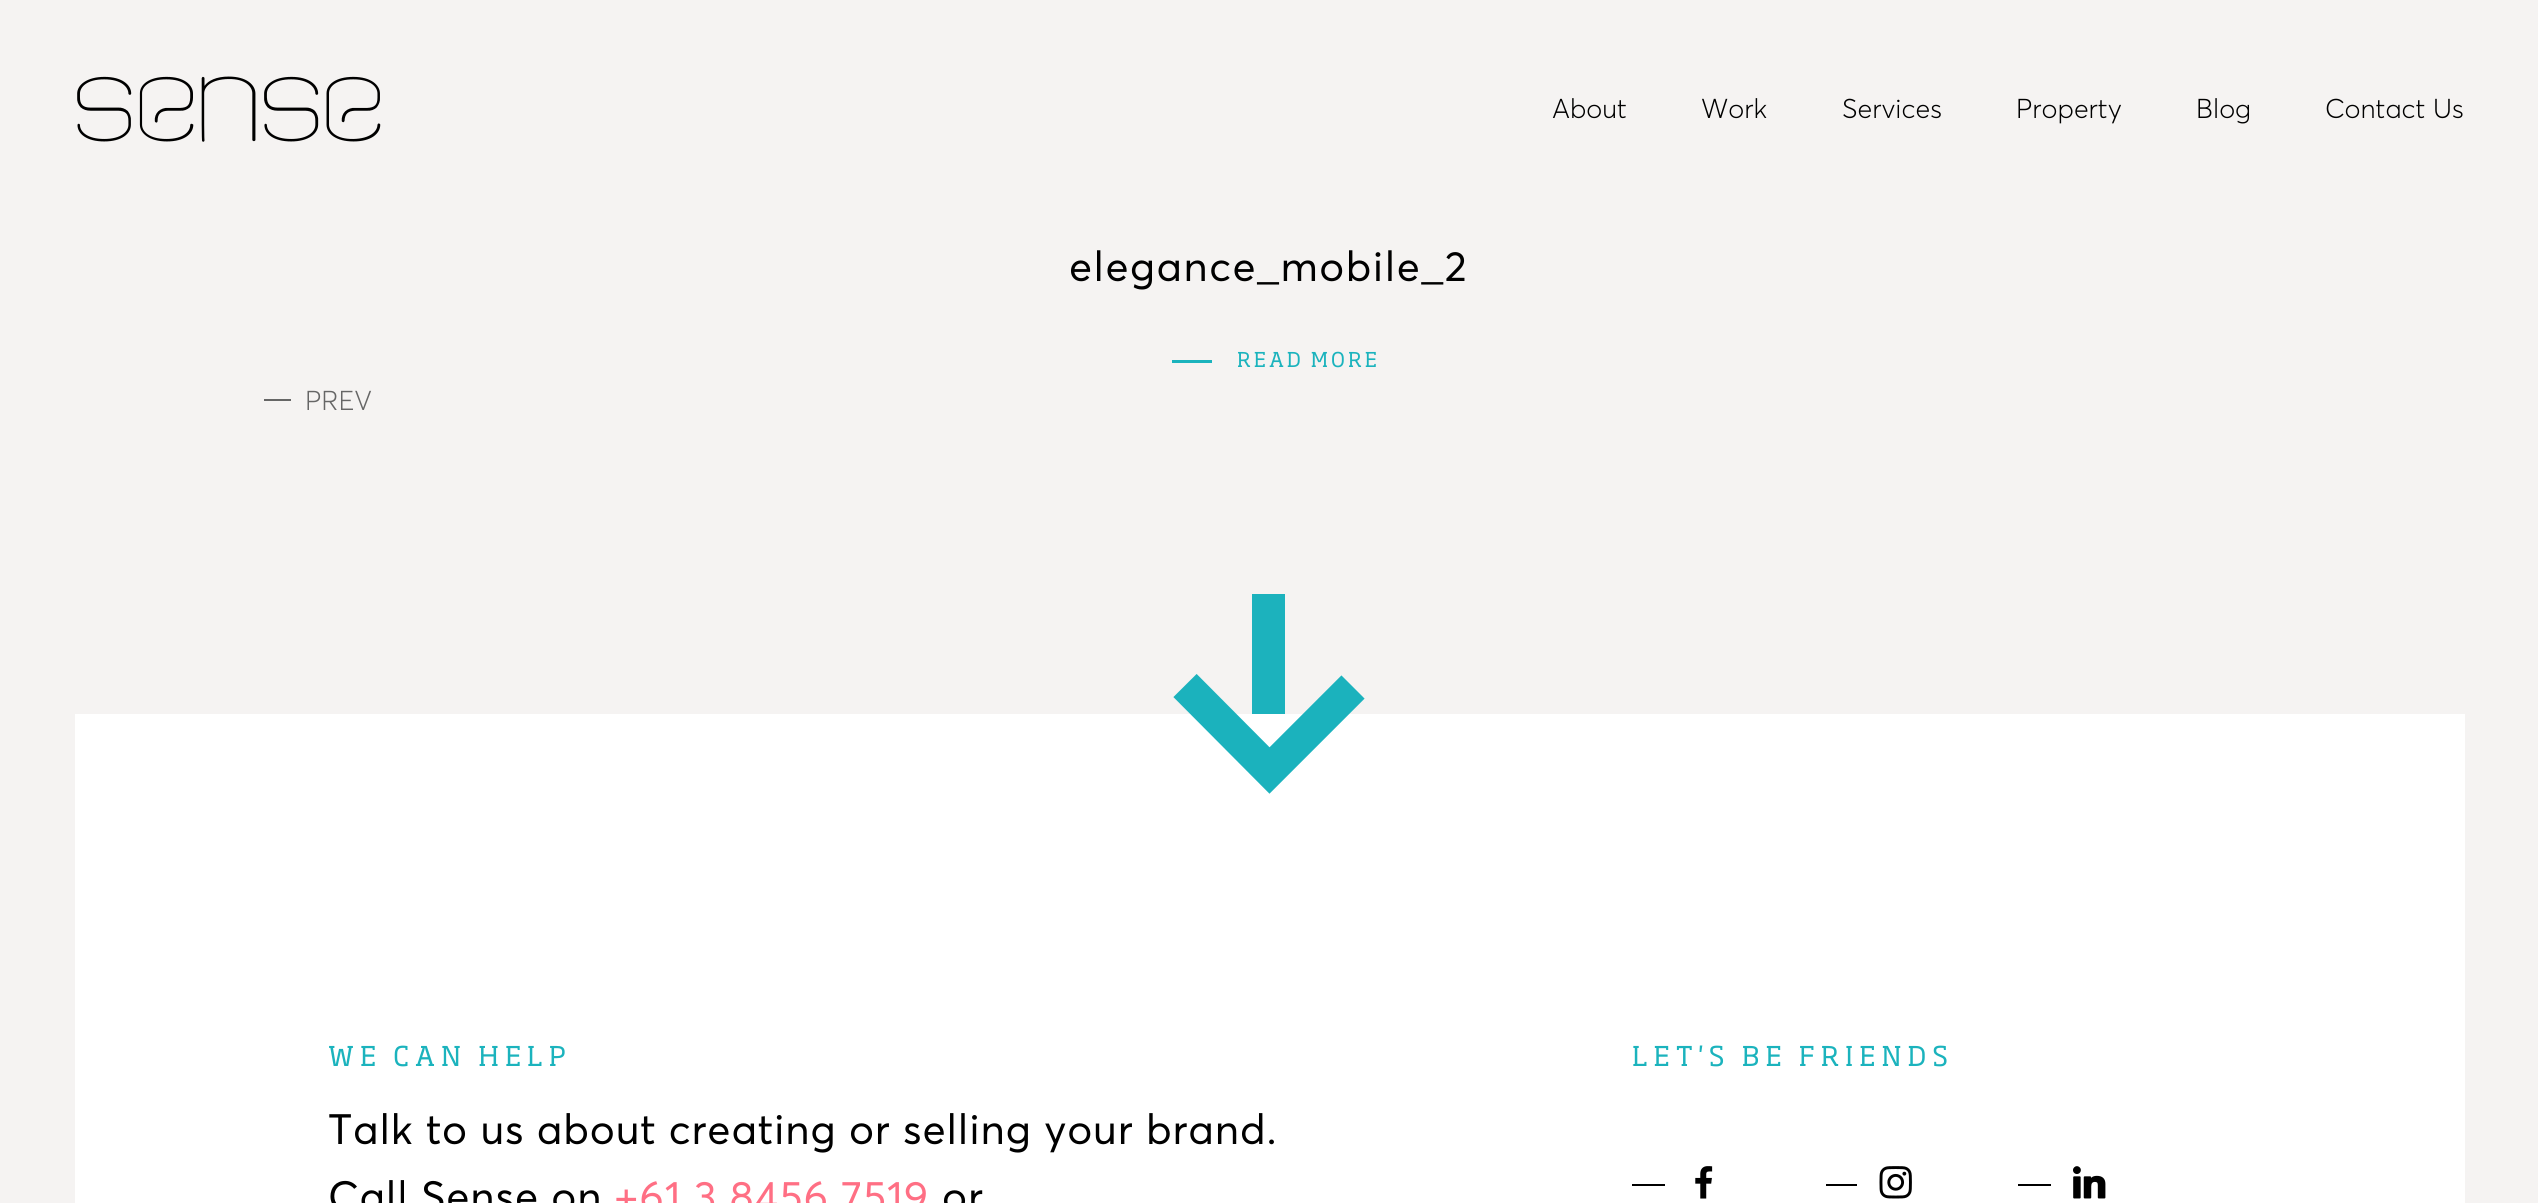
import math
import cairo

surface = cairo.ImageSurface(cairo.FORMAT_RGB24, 2538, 1203)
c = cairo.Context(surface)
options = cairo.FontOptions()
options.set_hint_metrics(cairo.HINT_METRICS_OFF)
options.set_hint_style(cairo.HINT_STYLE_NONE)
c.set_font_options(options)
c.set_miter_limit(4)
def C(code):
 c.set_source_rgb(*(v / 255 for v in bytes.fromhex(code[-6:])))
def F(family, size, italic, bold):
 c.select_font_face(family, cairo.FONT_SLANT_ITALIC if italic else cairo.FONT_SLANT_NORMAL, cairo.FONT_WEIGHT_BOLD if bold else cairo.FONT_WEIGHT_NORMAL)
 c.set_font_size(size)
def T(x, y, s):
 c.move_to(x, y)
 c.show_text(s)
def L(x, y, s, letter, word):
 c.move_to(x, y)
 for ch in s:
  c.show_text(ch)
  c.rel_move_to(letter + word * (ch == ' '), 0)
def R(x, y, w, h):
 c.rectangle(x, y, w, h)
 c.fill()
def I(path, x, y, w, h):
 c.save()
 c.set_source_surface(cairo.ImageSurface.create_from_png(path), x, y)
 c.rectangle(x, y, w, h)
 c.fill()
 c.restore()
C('f5f3f2')
c.paint()
I('1.png',77,76,304,66)
F('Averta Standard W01 Light',27,0,0)
C('000000')
T(1552,118,'About')
T(1701,118,'Work')
T(1842,118,'Services')
T(2016,118,'Property')
T(2196,118,'Blog')
T(2325,118,'Contact Us')
F('Averta Standard W01',41.75,0,0)
L(1069,281,'elegance_mobile_2',1.5,0)
C('1bb3bd')
R(1172,360,40,3)
F('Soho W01',20.25,0,0)
L(1237,367,'READ MORE',3,0)
C('666666')
R(264,399,27,2)
F('Averta Standard W01 Light',27,0,0)
T(305,410,'PREV')
C('ffffff')
R(75,714,2390,489)
c.new_path()
c.move_to(1353,687)
c.line_to(1269.5,770.5)
c.line_to(1185,685.5)
C('1bb2bd')
c.set_line_width(32.8)
c.stroke()
C('1cb2bd')
R(1252,594,33,120)
F('Soho W01',27,0,0)
C('1bb3bd')
L(328,1066,'WE CAN HELP',6,0)
F('Averta Standard W01',42,0,0)
C('000000')
L(328,1144,'Talk to us about creating or selling your brand.',.85,0)
L(328,1211,'Call Sense on',.85,0)
C('ff6f84')
L(614,1211,'+61 3 8456 7519',.85,0)
C('000000')
L(942,1211,'or',.85,0)
F('Soho W01',27,0,0)
C('1bb3bd')
L(1632,1066,'LET\'S BE FRIENDS',6,0)
C('000000')
R(1632,1184,33,2)
I('2.png',1695,1166,18,33)
R(1826,1184,31,2)
I('3.png',1879,1166,33,33)
R(2018,1184,33,2)
I('4.png',2073,1166,33,33)
surface.write_to_png('o.png')
